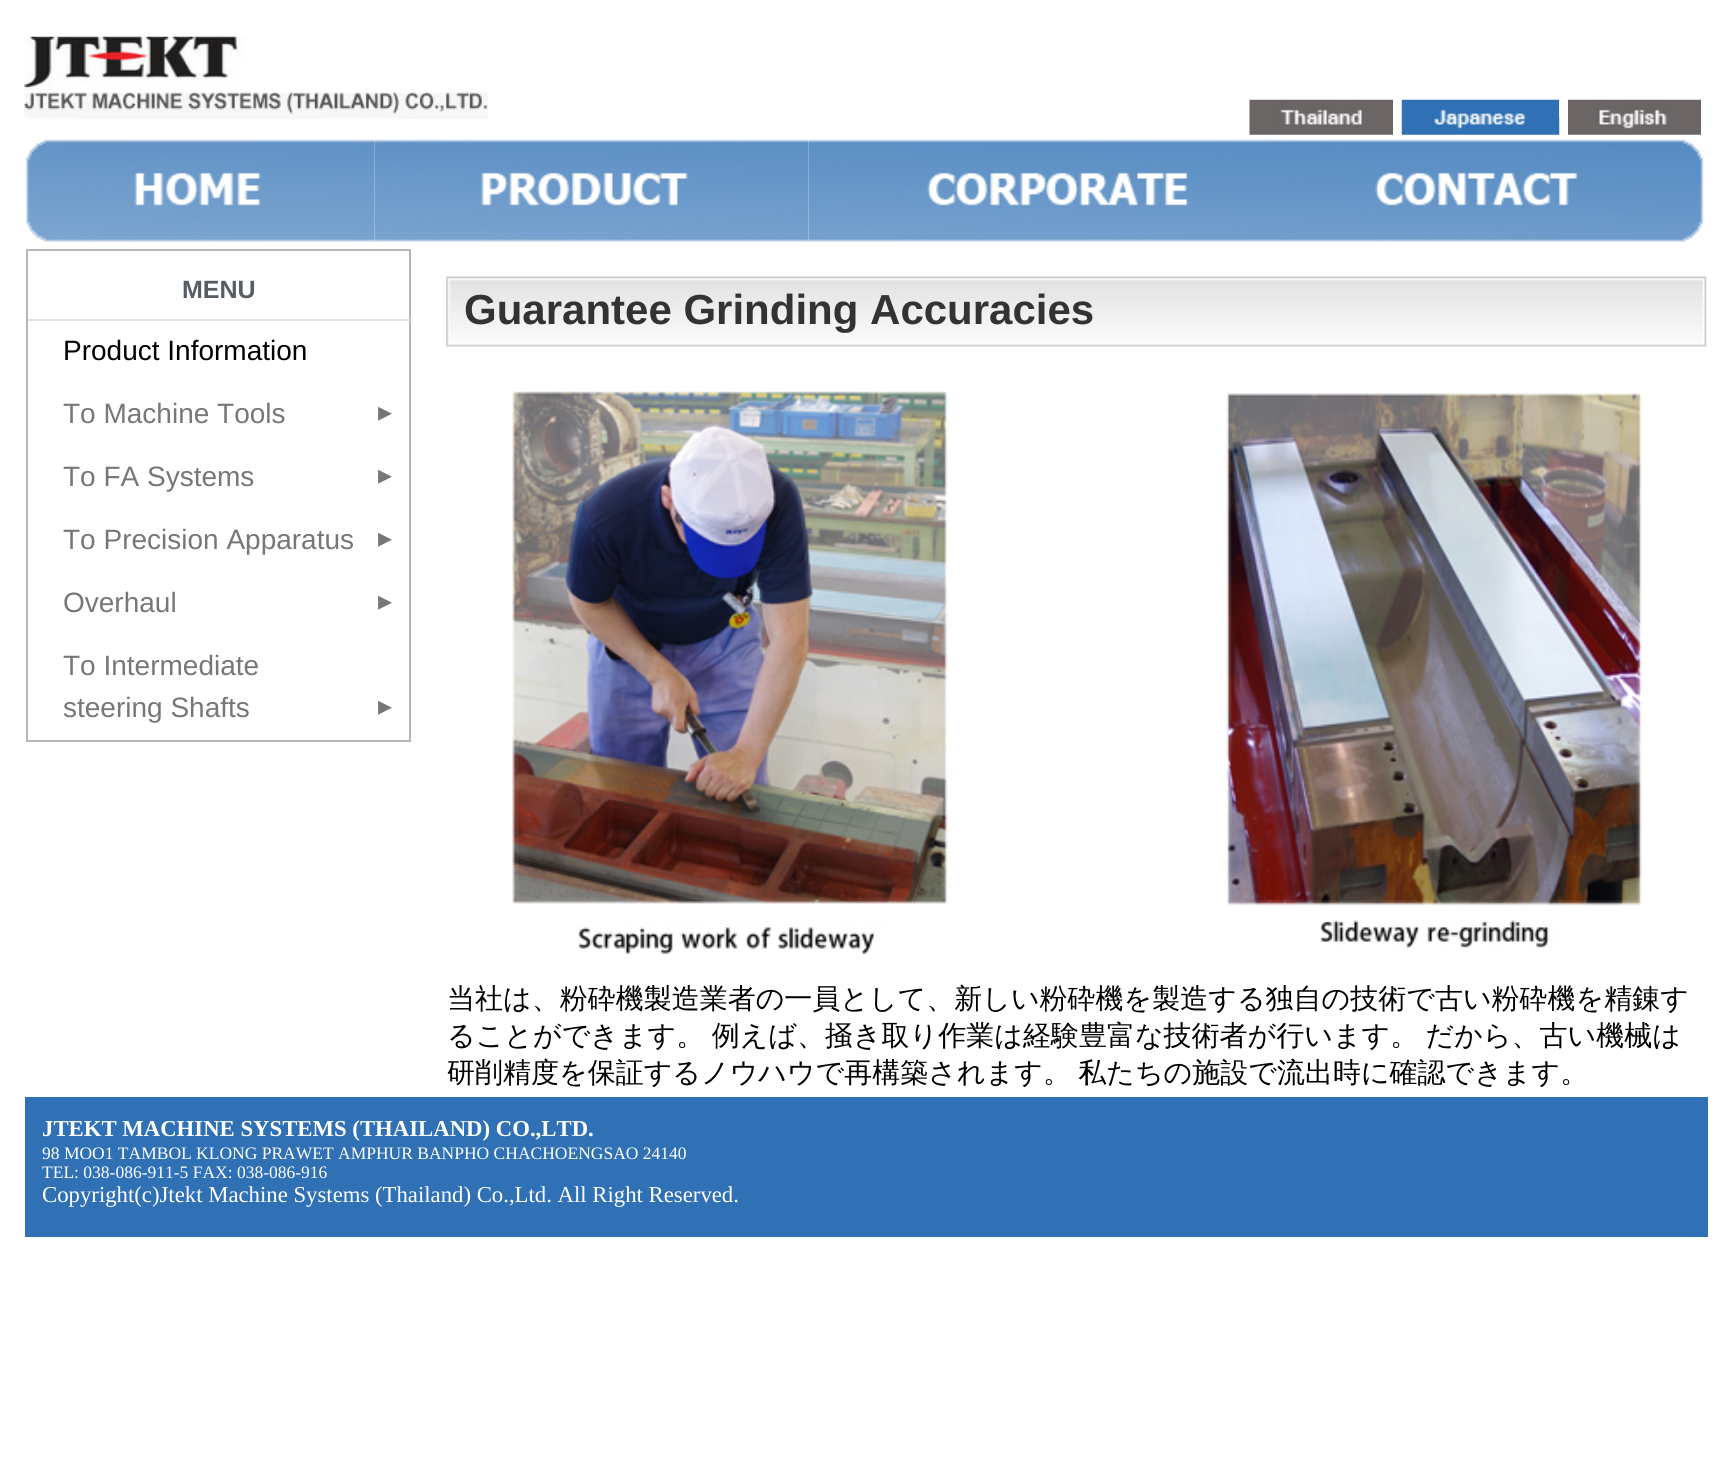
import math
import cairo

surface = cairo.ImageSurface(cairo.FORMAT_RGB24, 1731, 1464)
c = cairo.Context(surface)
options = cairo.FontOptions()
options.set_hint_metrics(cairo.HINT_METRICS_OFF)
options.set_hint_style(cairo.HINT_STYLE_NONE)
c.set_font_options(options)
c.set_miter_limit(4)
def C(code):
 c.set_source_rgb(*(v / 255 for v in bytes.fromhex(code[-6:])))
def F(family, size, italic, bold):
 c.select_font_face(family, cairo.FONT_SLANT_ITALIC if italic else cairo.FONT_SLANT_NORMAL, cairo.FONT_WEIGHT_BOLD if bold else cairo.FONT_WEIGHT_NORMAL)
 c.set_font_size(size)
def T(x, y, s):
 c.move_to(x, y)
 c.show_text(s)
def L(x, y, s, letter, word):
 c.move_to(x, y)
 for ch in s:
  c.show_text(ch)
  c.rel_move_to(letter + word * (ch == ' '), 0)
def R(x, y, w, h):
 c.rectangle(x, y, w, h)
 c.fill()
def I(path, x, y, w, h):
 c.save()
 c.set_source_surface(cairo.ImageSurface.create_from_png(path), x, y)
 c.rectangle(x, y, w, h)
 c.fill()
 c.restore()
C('ffffff')
c.paint()
I('1.png',24,36,222,55)
I('2.png',24,92,464,27)
I('3.png',1249,99,144,36)
I('4.png',1401,99,159,36)
I('5.png',1568,99,133,36)
I('6.png',1559,100,1,18)
I('7.png',25,139,350,103)
I('8.png',374,139,435,103)
I('9.png',808,139,494,103)
I('10.png',1302,139,402,103)
c.rectangle(27,250,383,491)
C('b7b7b7')
c.stroke()
C('dfdfdf')
R(28,319,382,2)
F('Liberation Sans',25,0,1)
C('565d64')
T(182,298,'MENU')
F('Liberation Sans',28,0,0)
C('000000')
T(63,360,'Product Information')
C('777777')
T(63,423,'To Machine Tools')
F('DejaVu Sans',28,0,0)
T(378,421,'▸')
F('Liberation Sans',28,0,0)
T(63,486,'To FA Systems')
F('DejaVu Sans',28,0,0)
T(378,484,'▸')
F('Liberation Sans',28,0,0)
T(63,549,'To Precision Apparatus')
F('DejaVu Sans',28,0,0)
T(378,547,'▸')
F('Liberation Sans',28,0,0)
T(63,612,'Overhaul')
F('DejaVu Sans',28,0,0)
T(378,610,'▸')
F('Liberation Sans',28,0,0)
T(63,675,'To Intermediate')
T(63,717,'steering Shafts')
F('DejaVu Sans',28,0,0)
T(378,715,'▸')
I('11.png',446,276,1261,71)
F('Liberation Sans',42,0,1)
C('333333')
T(464,324,'Guarantee Grinding Accuracies')
I('12.png',512,391,1130,563)
F('WenQuanYi Zen Hei Medium',28,0,0)
C('000000')
T(447,1008,'当社は、粉砕機製造業者の一員として、新しい粉砕機を製造する独自の技術で古い粉砕機を精錬す')
L(447,1045,'ることができます。 例えば、掻き取り作業は経験豊富な技術者が行います。 だから、古い機械は',0,-1)
L(447,1082,'研削精度を保証するノウハウで再構築されます。 私たちの施設で流出時に確認できます。',0,-1)
C('3071b5')
R(25,1097,1683,140)
F('Liberation Serif',22.75,0,1)
C('ffffff')
T(42,1136,'JTEKT MACHINE SYSTEMS (THAILAND) CO.,LTD.')
F('Liberation Serif',17.5,0,0)
T(42,1159,'98 MOO1 TAMBOL KLONG PRAWET AMPHUR BANPHO CHACHOENGSAO 24140')
T(42,1178,'TEL: 038-086-911-5 FAX: 038-086-916')
F('Liberation Serif',22.75,0,0)
T(42,1202,'Copyright(c)Jtekt Machine Systems (Thailand) Co.,Ltd. All Right Reserved.')
surface.write_to_png('o.png')
